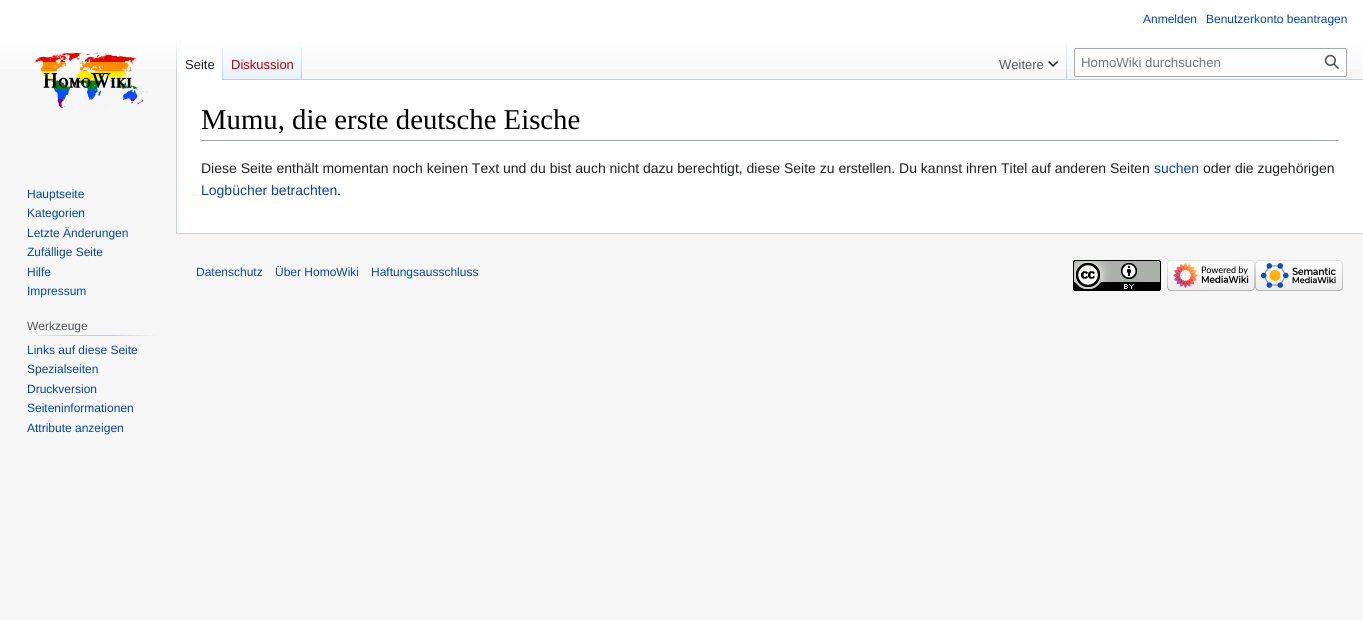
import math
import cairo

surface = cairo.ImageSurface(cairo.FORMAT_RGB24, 1363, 620)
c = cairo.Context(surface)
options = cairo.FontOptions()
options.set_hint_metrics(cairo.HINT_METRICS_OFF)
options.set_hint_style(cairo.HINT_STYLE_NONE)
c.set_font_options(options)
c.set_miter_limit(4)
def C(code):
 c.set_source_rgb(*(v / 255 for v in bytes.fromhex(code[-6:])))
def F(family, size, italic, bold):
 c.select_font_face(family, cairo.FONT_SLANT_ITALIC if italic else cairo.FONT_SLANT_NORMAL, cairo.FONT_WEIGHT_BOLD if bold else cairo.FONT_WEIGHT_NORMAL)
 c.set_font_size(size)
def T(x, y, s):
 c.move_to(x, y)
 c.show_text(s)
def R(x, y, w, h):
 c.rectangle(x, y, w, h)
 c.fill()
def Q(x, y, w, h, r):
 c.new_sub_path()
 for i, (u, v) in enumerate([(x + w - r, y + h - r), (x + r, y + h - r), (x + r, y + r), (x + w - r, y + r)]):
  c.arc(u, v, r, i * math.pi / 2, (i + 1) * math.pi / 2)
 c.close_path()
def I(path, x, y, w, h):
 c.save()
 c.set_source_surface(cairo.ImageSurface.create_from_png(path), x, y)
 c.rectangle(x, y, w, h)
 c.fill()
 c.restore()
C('f6f6f6')
c.paint()
gradient = cairo.LinearGradient(682,0,682,80)
gradient.add_color_stop_rgba(.5,1,1,1,1)
gradient.add_color_stop_rgba(1,0.965,0.965,0.965,1)
c.set_source(gradient)
R(0,0,1363,69)
F('Liberation Sans',12,0,0)
C('0645ad')
T(1143,23,'Anmelden')
T(1206,23,'Benutzerkonto beantragen')
C('a7d7f9')
R(176,233,1187,1)
R(176,79,1,155)
gradient = cairo.LinearGradient(177,40,177,80)
gradient.add_color_stop_rgba(0,0.655,0.843,0.976,0)
gradient.add_color_stop_rgba(1,0.655,0.843,0.976,1)
c.set_source(gradient)
R(176,40,1,40)
C('ffffff')
R(177,51,45,29)
gradient = cairo.LinearGradient(223,40,223,80)
gradient.add_color_stop_rgba(0,1,1,1,1)
gradient.add_color_stop_rgba(1,0.655,0.843,0.976,1)
c.set_source(gradient)
R(222,40,1,40)
F('Liberation Sans',13,0,0)
C('202122')
T(185,69,'Seite')
gradient = cairo.LinearGradient(263,80,263,40)
gradient.add_color_stop_rgba(0,0.467,0.757,0.965,1)
gradient.add_color_stop_rgba(.03,0.91,0.949,0.973,1)
gradient.add_color_stop_rgba(1,1,1,1,1)
c.set_source(gradient)
R(223,46,79,34)
gradient = cairo.LinearGradient(302,40,302,80)
gradient.add_color_stop_rgba(0,0.655,0.843,0.976,0)
gradient.add_color_stop_rgba(1,0.655,0.843,0.976,1)
c.set_source(gradient)
R(301,40,1,40)
C('ba0000')
T(231,69,'Diskussion')
C('a7d7f9')
R(302,79,1061,1)
gradient = cairo.LinearGradient(1067,40,1067,80)
gradient.add_color_stop_rgba(0,0.655,0.843,0.976,0)
gradient.add_color_stop_rgba(1,0.655,0.843,0.976,1)
c.set_source(gradient)
R(1066,40,1,40)
C('54595d')
T(999,69,'Weitere')
I('1.png',1048,61,10,6)
c.set_source_rgba(1,1,1,0.5)
Q(1074.5,48.5,272,28,1.5)
c.fill_preserve()
C('a2a9b1')
c.set_line_width(1)
c.stroke()
F('Liberation Sans',13.25,0,0)
C('72777d')
T(1081,67,'HomoWiki durchsuchen')
I('2.png',1324,54,15,15)
I('3.png',26,53,122,55)
F('Liberation Sans',12,0,0)
C('0645ad')
T(27,198,'Hauptseite')
T(27,217,'Kategorien')
T(27,237,'Letzte Änderungen')
T(27,256,'Zufällige Seite')
T(27,276,'Hilfe')
T(27,295,'Impressum')
gradient = cairo.LinearGradient(27,336,158,336)
gradient.add_color_stop_rgba(0,0.965,0.965,0.965,1)
gradient.add_color_stop_rgba(.33,0.784,0.8,0.82,1)
gradient.add_color_stop_rgba(.66,0.784,0.8,0.82,1)
gradient.add_color_stop_rgba(1,0.965,0.965,0.965,1)
c.set_source(gradient)
R(27,335,131,1)
C('54595d')
T(27,330,'Werkzeuge')
C('0645ad')
T(27,354,'Links auf diese Seite')
T(27,373,'Spezialseiten')
T(27,393,'Druckversion')
T(27,412,'Seiteninformationen')
T(27,432,'Attribute anzeigen')
C('ffffff')
R(177,80,1186,153)
C('a2a9b1')
R(201,140,1138,1)
F('Liberation Serif',28.75,0,0)
C('000000')
T(201,129,'Mumu, die erste deutsche Eische')
F('Liberation Sans',14,0,0)
C('202122')
T(201,173,'Diese Seite enthält momentan noch keinen Text und du bist auch nicht dazu berechtigt, diese Seite zu erstellen. Du kannst ihren Titel auf anderen Seiten')
C('0645ad')
T(1154,173,'suchen')
C('202122')
T(1203,173,'oder die zugehörigen')
C('0645ad')
T(201,195,'Logbücher betrachten')
C('202122')
T(337,195,'.')
F('Liberation Sans',12,0,0)
C('0645ad')
T(196,276,'Datenschutz')
T(275,276,'Über HomoWiki')
T(371,276,'Haftungsausschluss')
I('4.png',1073,260,88,31)
I('5.png',1167,260,88,31)
I('6.png',1255,260,88,31)
surface.write_to_png('o.png')
